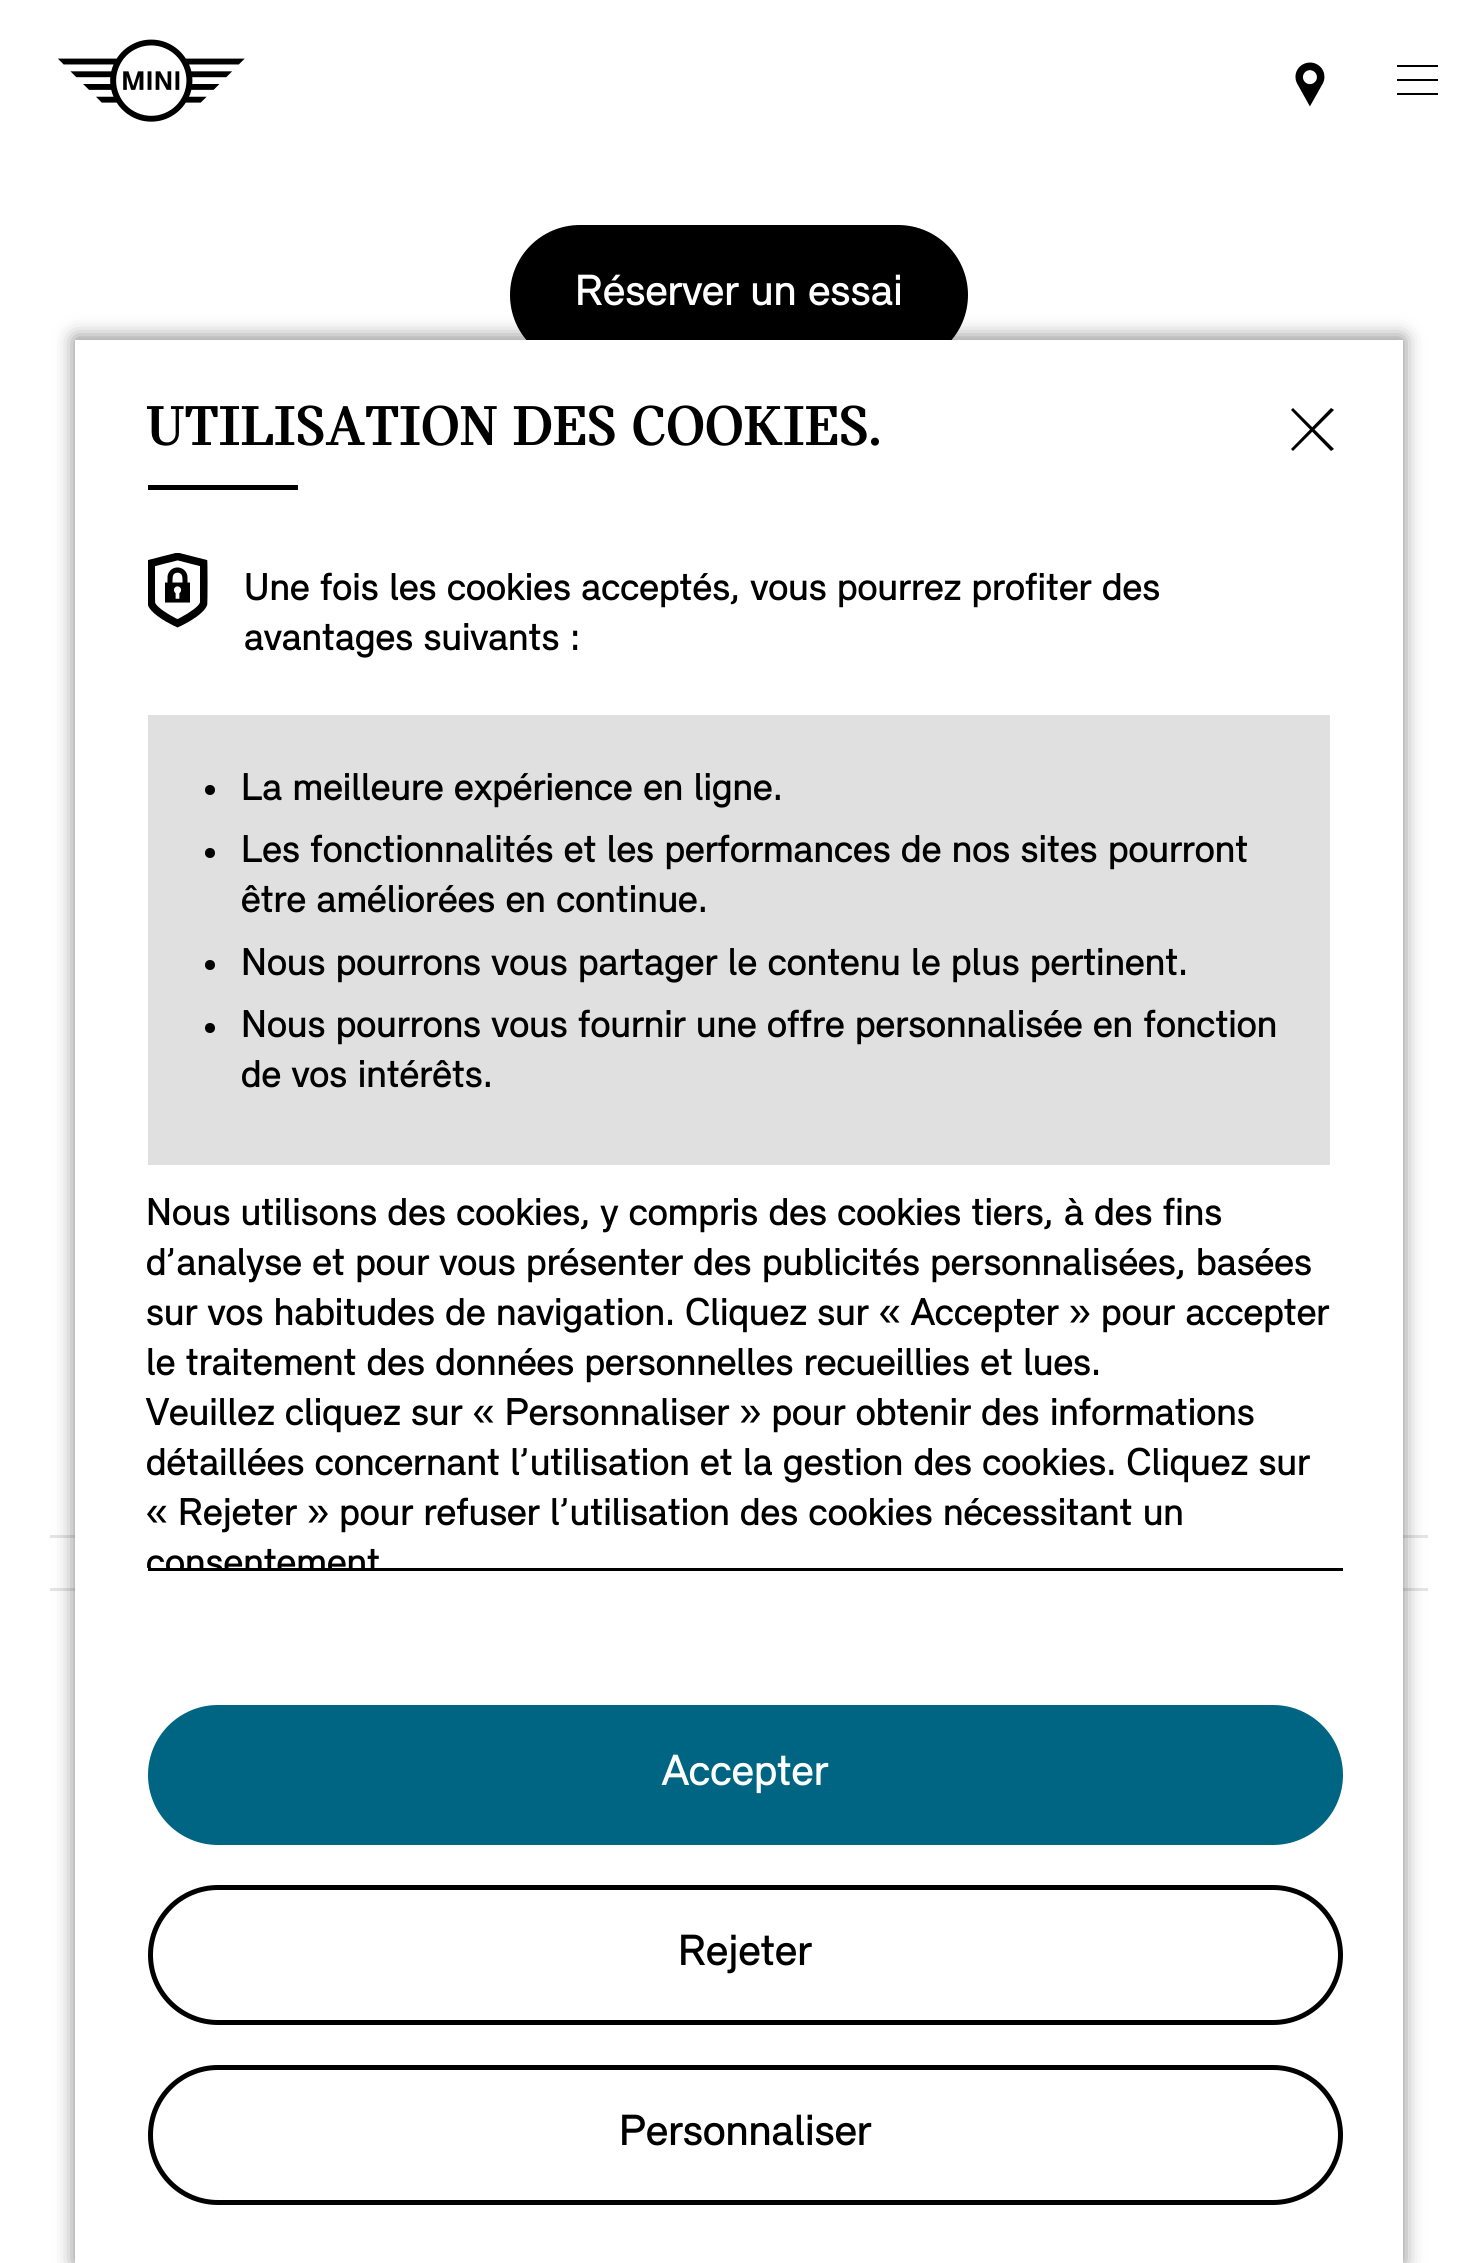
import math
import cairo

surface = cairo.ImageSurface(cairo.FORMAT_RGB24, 1477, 2263)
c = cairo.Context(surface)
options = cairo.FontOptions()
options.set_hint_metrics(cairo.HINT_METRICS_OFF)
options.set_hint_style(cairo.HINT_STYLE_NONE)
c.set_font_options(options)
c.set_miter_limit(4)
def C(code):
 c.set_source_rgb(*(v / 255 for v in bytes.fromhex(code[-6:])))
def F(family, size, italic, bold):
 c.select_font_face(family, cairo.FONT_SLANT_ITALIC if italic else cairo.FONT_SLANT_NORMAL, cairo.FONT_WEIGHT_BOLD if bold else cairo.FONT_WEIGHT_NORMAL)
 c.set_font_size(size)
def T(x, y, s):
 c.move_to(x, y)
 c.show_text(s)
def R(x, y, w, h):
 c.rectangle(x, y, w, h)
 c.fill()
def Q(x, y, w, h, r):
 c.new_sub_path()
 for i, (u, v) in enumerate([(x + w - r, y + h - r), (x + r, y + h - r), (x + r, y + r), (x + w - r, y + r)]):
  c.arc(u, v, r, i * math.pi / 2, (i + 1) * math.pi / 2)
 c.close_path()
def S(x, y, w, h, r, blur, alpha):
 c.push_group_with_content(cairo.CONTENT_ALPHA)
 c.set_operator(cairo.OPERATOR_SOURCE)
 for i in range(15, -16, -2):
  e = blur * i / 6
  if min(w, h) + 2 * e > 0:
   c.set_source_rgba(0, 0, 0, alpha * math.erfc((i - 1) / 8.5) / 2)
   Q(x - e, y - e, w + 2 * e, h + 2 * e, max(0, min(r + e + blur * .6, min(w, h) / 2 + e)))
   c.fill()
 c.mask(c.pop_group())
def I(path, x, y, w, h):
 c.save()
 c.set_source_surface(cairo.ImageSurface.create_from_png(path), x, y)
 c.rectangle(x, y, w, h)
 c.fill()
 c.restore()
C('ffffff')
c.paint()
I('1.png',58,39,187,83)
I('2.png',1295,62,30,45)
C('000000')
c.new_path()
c.move_to(1397,65)
c.line_to(1397,67)
c.line_to(1438,67)
c.line_to(1438,65)
c.close_path()
c.move_to(1397,81)
c.line_to(1438,81)
c.line_to(1438,79)
c.line_to(1397,79)
c.close_path()
c.move_to(1397,95)
c.line_to(1438,95)
c.line_to(1438,93)
c.line_to(1397,93)
c.close_path()
c.fill()
Q(510,225,458,140,70)
c.fill()
F('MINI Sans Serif',45,0,0)
C('ffffff')
T(575,305,'Réserver un essai')
C('e5e5e5')
R(50,1535,1378,3)
R(50,1588,1378,3)
C('000000')
S(75,338,1328,1925,0,10,.5)
C('ffffff')
R(75,340,1328,1923)
F('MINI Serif',60,0,1)
C('000000')
T(146,445,'UTILISATION DES COOKIES.')
R(148,485,150,5)
c.new_path()
c.move_to(1331,451)
c.line_to(1291,410)
c.line_to(1293,408)
c.line_to(1334,449)
c.close_path()
c.fill()
c.new_path()
c.move_to(1291,449)
c.line_to(1331,408)
c.line_to(1334,410)
c.line_to(1293,451)
c.close_path()
c.fill()
I('3.png',148,553,60,75)
F('MINI Sans Serif',40,0,0)
T(244,600,'Une fois les cookies acceptés, vous pourrez profiter des')
T(244,650,'avantages suivants :')
C('e0e0e0')
R(148,715,1182,450)
C('000000')
c.new_path()
c.arc(210,790,5,0,2 * math.pi)
c.fill()
T(241,800,'La meilleure expérience en ligne.')
c.new_path()
c.arc(210,853,5,0,2 * math.pi)
c.fill()
T(241,862,'Les fonctionnalités et les performances de nos sites pourront')
T(241,912,'être améliorées en continue.')
c.new_path()
c.arc(210,965,5,0,2 * math.pi)
c.fill()
T(241,975,'Nous pourrons vous partager le contenu le plus pertinent.')
c.new_path()
c.arc(210,1028,5,0,2 * math.pi)
c.fill()
T(241,1037,'Nous pourrons vous fournir une offre personnalisée en fonction')
T(241,1087,'de vos intérêts.')
T(146,1225,'Nous utilisons des cookies, y compris des cookies tiers, à des fins')
T(146,1275,'d’analyse et pour vous présenter des publicités personnalisées, basées')
T(146,1325,'sur vos habitudes de navigation. Cliquez sur « Accepter » pour accepter')
T(146,1375,'le traitement des données personnelles recueillies et lues.')
T(146,1425,'Veuillez cliquez sur « Personnaliser » pour obtenir des informations')
T(146,1475,'détaillées concernant l’utilisation et la gestion des cookies. Cliquez sur')
T(146,1525,'« Rejeter » pour refuser l’utilisation des cookies nécessitant un')
c.save()
c.rectangle(135,540,1208,1028)
c.clip()
T(146,1575,'consentement')
c.restore()
R(148,1568,1195,3)
C('006583')
Q(148,1705,1195,140,70)
c.fill()
F('MINI Sans Serif',45,0,0)
C('ffffff')
T(662,1785,'Accepter')
Q(150.5,1887.5,1190,135,67.5)
C('000000')
c.set_line_width(5)
c.stroke()
T(678,1965,'Rejeter')
Q(150.5,2067.5,1190,135,67.5)
c.stroke()
T(619,2145,'Personnaliser')
surface.write_to_png('o.png')
